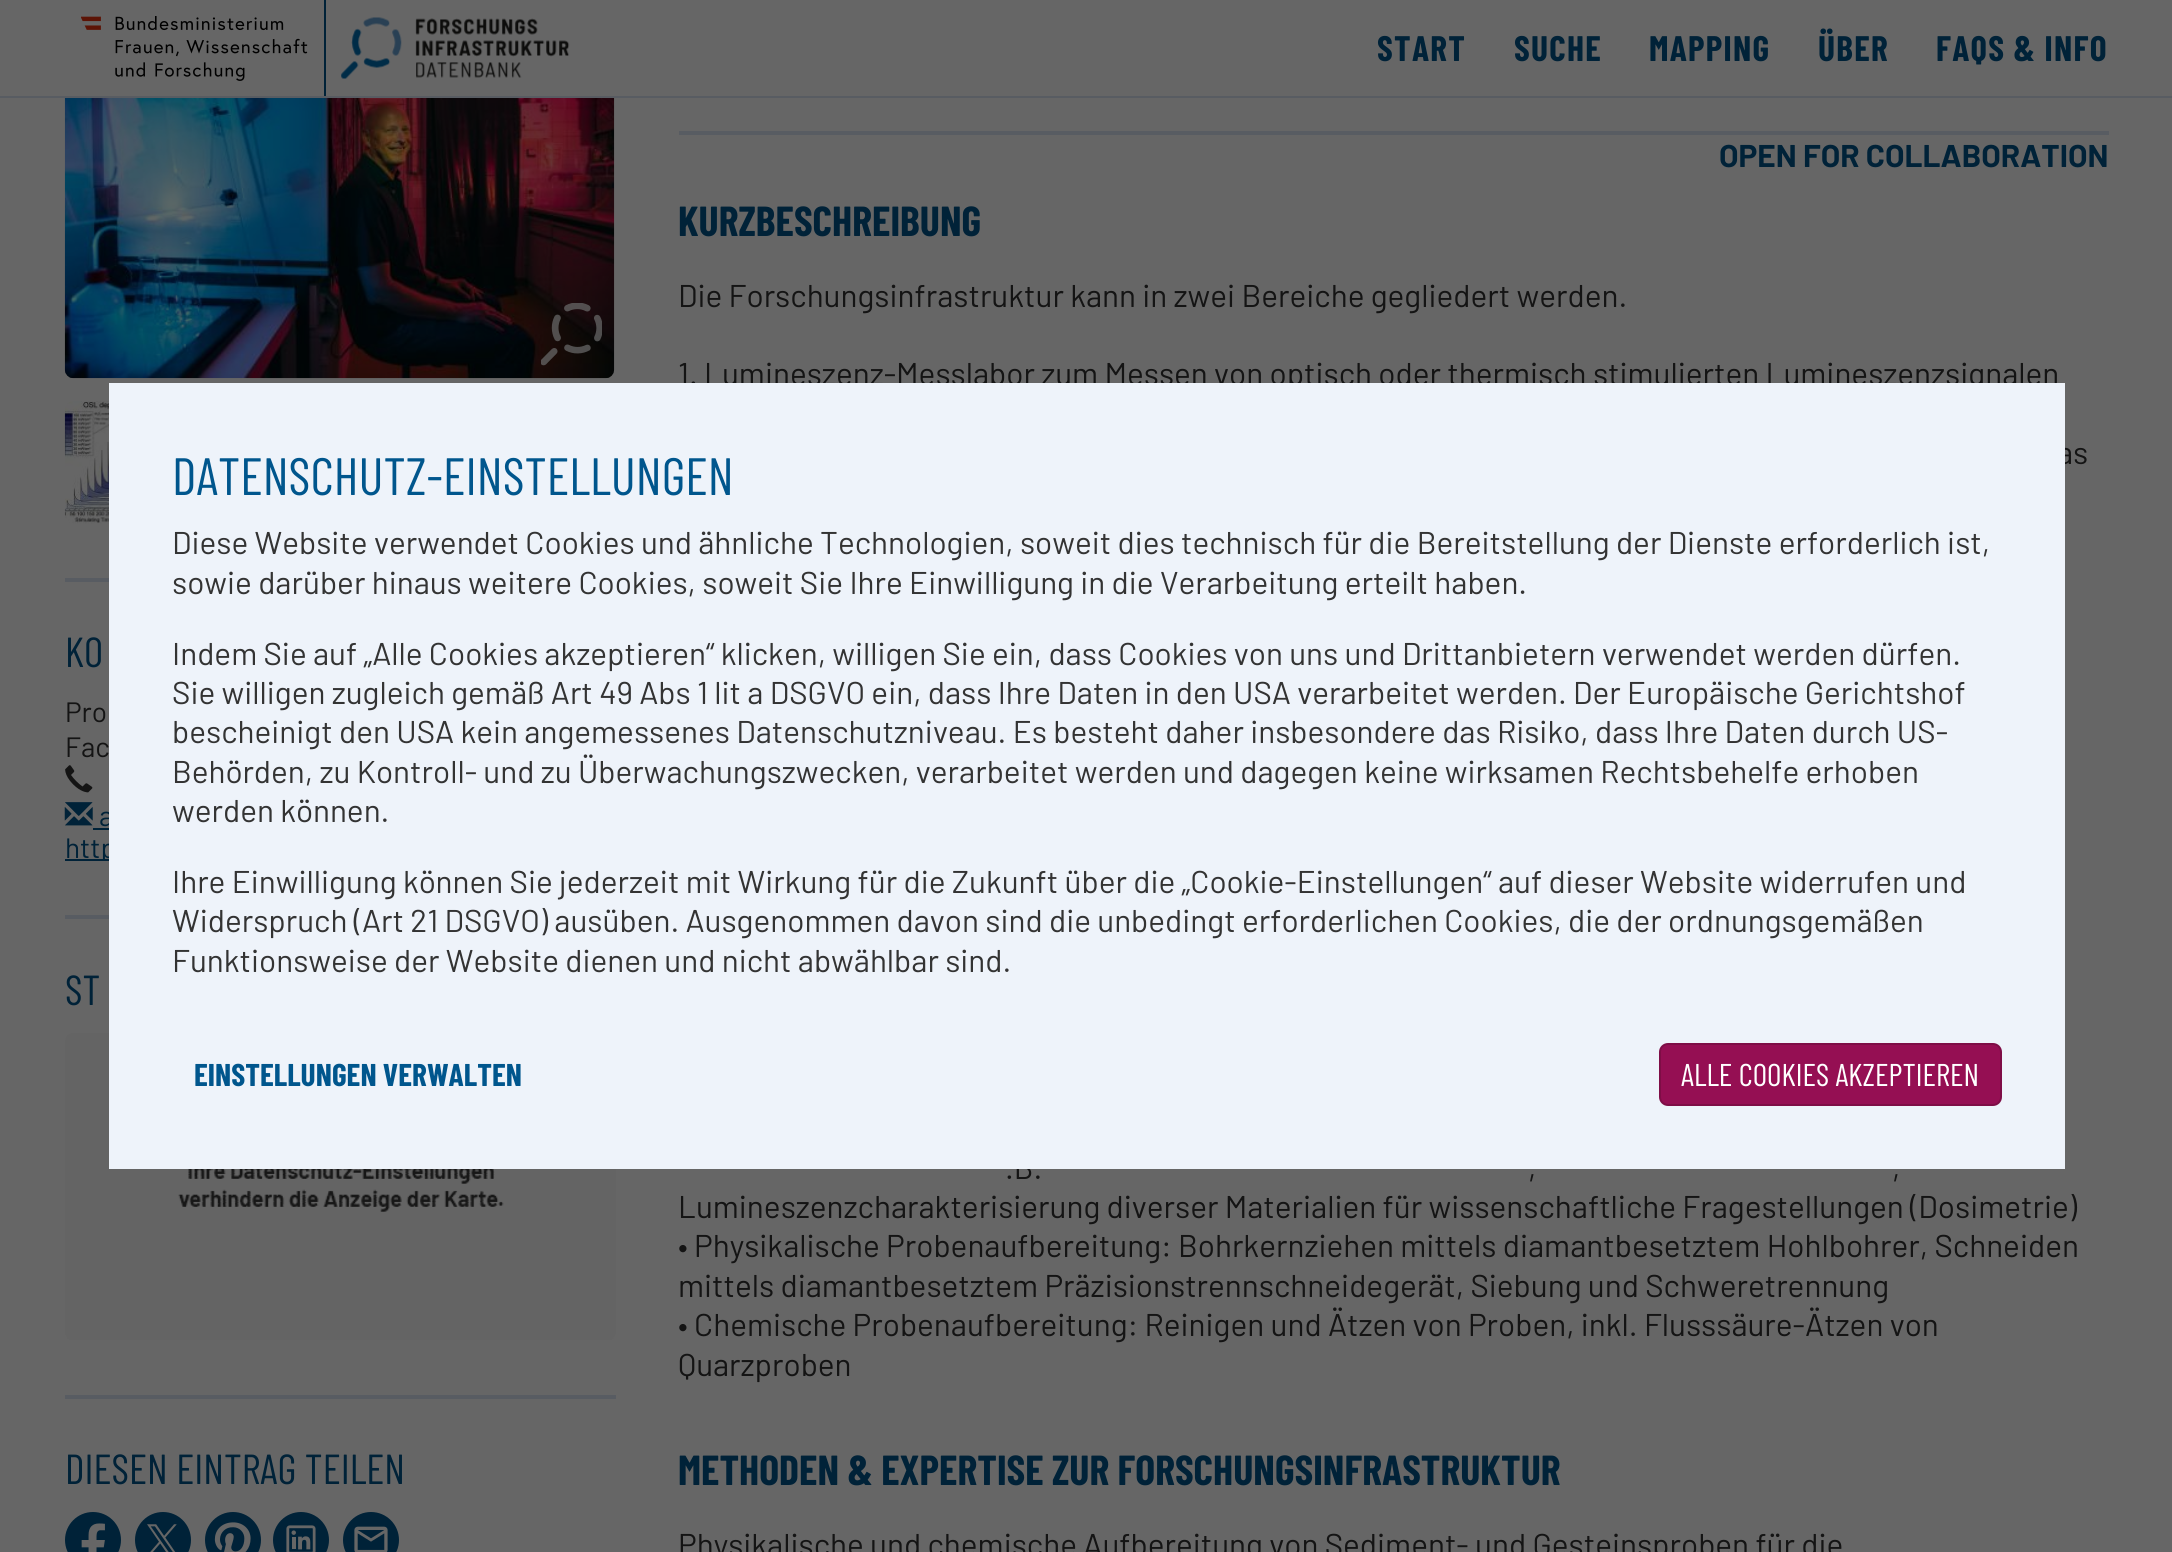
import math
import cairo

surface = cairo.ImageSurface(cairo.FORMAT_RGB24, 2172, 1552)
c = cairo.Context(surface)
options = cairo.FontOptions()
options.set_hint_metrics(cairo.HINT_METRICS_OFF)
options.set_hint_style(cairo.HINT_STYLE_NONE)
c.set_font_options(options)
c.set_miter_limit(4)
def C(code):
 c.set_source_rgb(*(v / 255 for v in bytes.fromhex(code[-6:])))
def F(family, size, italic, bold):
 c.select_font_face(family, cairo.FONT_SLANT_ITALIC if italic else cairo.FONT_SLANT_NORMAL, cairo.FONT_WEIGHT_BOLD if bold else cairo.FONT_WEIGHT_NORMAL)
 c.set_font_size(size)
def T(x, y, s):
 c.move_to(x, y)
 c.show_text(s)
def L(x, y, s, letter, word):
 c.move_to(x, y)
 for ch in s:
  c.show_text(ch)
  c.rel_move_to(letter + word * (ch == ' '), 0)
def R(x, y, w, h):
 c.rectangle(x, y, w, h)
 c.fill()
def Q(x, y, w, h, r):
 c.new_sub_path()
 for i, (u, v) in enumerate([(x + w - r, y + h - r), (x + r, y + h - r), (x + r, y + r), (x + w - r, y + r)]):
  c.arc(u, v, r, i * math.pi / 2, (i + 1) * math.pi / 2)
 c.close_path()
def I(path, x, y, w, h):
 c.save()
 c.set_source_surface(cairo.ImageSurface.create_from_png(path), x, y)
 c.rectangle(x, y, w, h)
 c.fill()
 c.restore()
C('666666')
c.paint()
C('585c62')
R(0,96,2172,2)
C('002238')
R(324,0,2,96)
I('1.png',81,16,227,65)
I('2.png',341,17,229,62)
F('Barlow Condensed',35.5,0,1)
L(1377,61,'START',1.25,0)
L(1514,61,'SUCHE',1.25,0)
L(1649,61,'MAPPING',1.25,0)
L(1818,61,'ÜBER',1.25,0)
L(1936,61,'FAQS & INFO',1.25,0)
I('3.png',64,98,551,281)
I('4.png',541,303,61,63)
I('5.png',64,401,45,123)
C('585c62')
R(679,131,1430,4)
F('Barlow',31.5,0,1)
C('002238')
T(1719,167,'OPEN FOR COLLABORATION')
F('Barlow Condensed',42,0,1)
T(678,236,'KURZBESCHREIBUNG')
F('Barlow',31.5,0,0)
C('141414')
T(678,307,'Die Forschungsinfrastruktur kann in zwei Bereiche gegliedert werden.')
T(678,385,'1. Lumineszenz-Messlabor zum Messen von optisch oder thermisch stimulierten Lumineszenzsignalen')
T(2057,464,'as')
T(1005,1179,'.B.')
T(1528,1179,',')
T(1892,1179,',')
T(678,1218,'Lumineszenzcharakterisierung diverser Materialien für wissenschaftliche Fragestellungen (Dosimetrie)')
T(678,1257,'• Physikalische Probenaufbereitung: Bohrkernziehen mittels diamantbesetztem Hohlbohrer, Schneiden')
T(678,1297,'mittels diamantbesetztem Präzisionstrennschneidegerät, Siebung und Schweretrennung')
T(678,1336,'• Chemische Probenaufbereitung: Reinigen und Ätzen von Proben, inkl. Flusssäure-Ätzen von')
T(678,1376,'Quarzproben')
F('Barlow Condensed',42,0,1)
C('002238')
T(678,1485,'METHODEN & EXPERTISE ZUR FORSCHUNGSINFRASTRUKTUR')
F('Barlow',31.5,0,0)
C('141414')
T(678,1556,'Physikalische und chemische Aufbereitung von Sediment- und Gesteinsproben für die')
C('585c62')
R(65,578,44,4)
R(65,915,44,4)
F('Barlow Condensed',42,0,0)
C('002238')
T(65,667,'KO')
F('Barlow',28,0,0)
C('141414')
T(65,722,'Pro')
T(65,757,'Fac')
I('6.png',65,765,28,28)
I('7.png',64,802,29,24)
C('002238')
T(99,826,'a')
R(93,828,16,2)
R(65,859,44,2)
c.save()
c.rectangle(65,833,551,28)
c.clip()
T(65,858,'http')
c.restore()
C('585c62')
R(65,1395,551,4)
F('Barlow Condensed',42,0,0)
C('002238')
T(65,1005,'ST')
I('8.png',65,1033,551,307)
T(65,1484,'DIESEN EINTRAG TEILEN')
c.new_path()
c.arc(93,1540,28,0,2 * math.pi)
c.fill()
I('9.png',81,1523,24,29)
c.arc(163,1540,28,0,2 * math.pi)
c.fill()
I('10.png',147,1524,30,28)
c.arc(233,1540,28,0,2 * math.pi)
c.fill()
I('11.png',214,1522,37,30)
c.arc(301,1540,28,0,2 * math.pi)
c.fill()
I('12.png',286,1525,30,27)
c.arc(371,1540,28,0,2 * math.pi)
c.fill()
I('13.png',354,1526,34,26)
C('eef3fa')
R(109,383,1956,786)
F('Barlow Condensed',52.5,0,0)
C('00568d')
T(172,495,'DATENSCHUTZ-EINSTELLUNGEN')
F('Barlow',31.5,0,0)
C('333333')
T(172,554,'Diese Website verwendet Cookies und ähnliche Technologien, soweit dies technisch für die Bereitstellung der Dienste erforderlich ist,')
T(172,594,'sowie darüber hinaus weitere Cookies, soweit Sie Ihre Einwilligung in die Verarbeitung erteilt haben.')
T(172,665,'Indem Sie auf „Alle Cookies akzeptieren“ klicken, willigen Sie ein, dass Cookies von uns und Drittanbietern verwendet werden dürfen.')
T(172,704,'Sie willigen zugleich gemäß Art 49 Abs 1 lit a DSGVO ein, dass Ihre Daten in den USA verarbeitet werden. Der Europäische Gerichtshof')
T(172,743,'bescheinigt den USA kein angemessenes Datenschutzniveau. Es besteht daher insbesondere das Risiko, dass Ihre Daten durch US-')
T(172,783,'Behörden, zu Kontroll- und zu Überwachungszwecken, verarbeitet werden und dagegen keine wirksamen Rechtsbehelfe erhoben')
T(172,822,'werden können.')
T(172,893,'Ihre Einwilligung können Sie jederzeit mit Wirkung für die Zukunft über die „Cookie-Einstellungen“ auf dieser Website widerrufen und')
T(172,932,'Widerspruch (Art 21 DSGVO) ausüben. Ausgenommen davon sind die unbedingt erforderlichen Cookies, die der ordnungsgemäßen')
T(172,972,'Funktionsweise der Website dienen und nicht abwählbar sind.')
F('Barlow Condensed',31.5,0,1)
C('00568d')
T(194,1086,'EINSTELLUNGEN VERWALTEN')
C('950f53')
Q(1660,1044,341,61,8)
c.fill_preserve()
C('7e0d46')
c.stroke()
F('Barlow Condensed',31.5,0,0)
C('ffffff')
T(1681,1086,'ALLE COOKIES AKZEPTIEREN')
surface.write_to_png('o.png')
